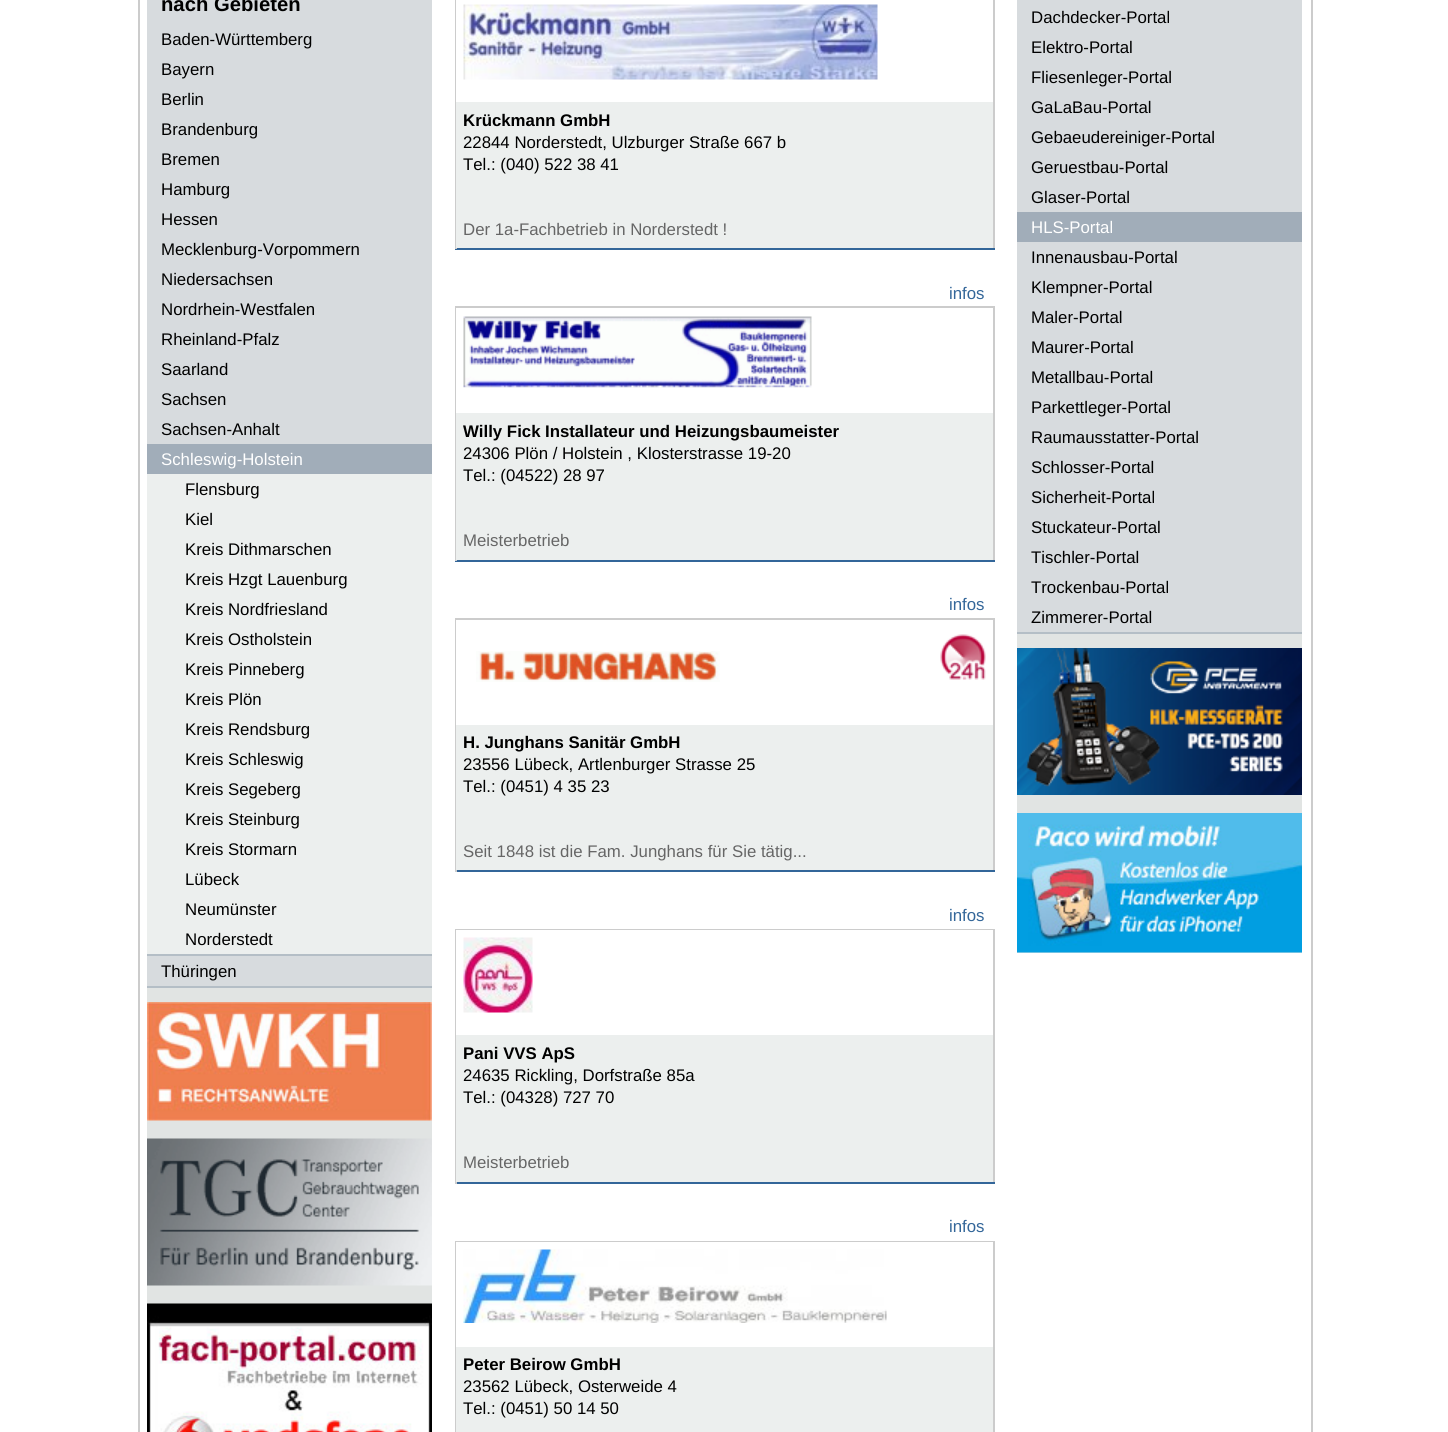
import math
import cairo

surface = cairo.ImageSurface(cairo.FORMAT_RGB24, 1448, 1432)
c = cairo.Context(surface)
options = cairo.FontOptions()
options.set_hint_metrics(cairo.HINT_METRICS_OFF)
options.set_hint_style(cairo.HINT_STYLE_NONE)
c.set_font_options(options)
c.set_miter_limit(4)
def C(code):
 c.set_source_rgb(*(v / 255 for v in bytes.fromhex(code[-6:])))
def F(family, size, italic, bold):
 c.select_font_face(family, cairo.FONT_SLANT_ITALIC if italic else cairo.FONT_SLANT_NORMAL, cairo.FONT_WEIGHT_BOLD if bold else cairo.FONT_WEIGHT_NORMAL)
 c.set_font_size(size)
def T(x, y, s):
 c.move_to(x, y)
 c.show_text(s)
def R(x, y, w, h):
 c.rectangle(x, y, w, h)
 c.fill()
def I(path, x, y, w, h):
 c.save()
 c.set_source_surface(cairo.ImageSurface.create_from_png(path), x, y)
 c.rectangle(x, y, w, h)
 c.fill()
 c.restore()
C('ffffff')
c.paint()
C('cccccc')
R(1311,0,2,1432)
R(138,0,2,1432)
C('e1e4e3')
R(147,988,285,316)
C('d7dbde')
R(147,0,285,444)
F('Liberation Sans',20.25,0,1)
C('000000')
T(161,11,'nach Gebieten')
C('b4bec6')
R(147,986,285,2)
F('Liberation Sans',16.8,0,0)
C('000000')
T(161,45,'Baden-Württemberg')
T(161,75,'Bayern')
T(161,105,'Berlin')
T(161,135,'Brandenburg')
T(161,165,'Bremen')
T(161,195,'Hamburg')
T(161,225,'Hessen')
T(161,255,'Mecklenburg-Vorpommern')
T(161,285,'Niedersachsen')
T(161,315,'Nordrhein-Westfalen')
T(161,345,'Rheinland-Pfalz')
T(161,375,'Saarland')
T(161,405,'Sachsen')
T(161,435,'Sachsen-Anhalt')
C('a1adb9')
R(147,444,285,30)
C('ffffff')
T(161,465,'Schleswig-Holstein')
C('b4bec6')
R(147,954,285,2)
C('ecefee')
R(147,474,285,480)
C('000000')
T(185,495,'Flensburg')
T(185,525,'Kiel')
T(185,555,'Kreis Dithmarschen')
T(185,585,'Kreis Hzgt Lauenburg')
T(185,615,'Kreis Nordfriesland')
T(185,645,'Kreis Ostholstein')
T(185,675,'Kreis Pinneberg')
T(185,705,'Kreis Plön')
T(185,735,'Kreis Rendsburg')
T(185,765,'Kreis Schleswig')
T(185,795,'Kreis Segeberg')
T(185,825,'Kreis Steinburg')
T(185,855,'Kreis Stormarn')
T(185,885,'Lübeck')
T(185,915,'Neumünster')
T(185,945,'Norderstedt')
C('d7dbde')
R(147,956,285,30)
C('000000')
T(161,977,'Thüringen')
I('1.png',147,1002,285,119)
I('2.png',147,1138,285,148)
I('3.png',147,1303,285,129)
C('cccccc')
R(993,0,2,249)
C('336699')
R(455,248,540,2)
C('cccccc')
R(455,0,2,249)
C('ffffff')
R(456,0,1,102)
I('4.png',463,4,415,76)
C('ecefee')
R(456,102,537,146)
F('Liberation Sans',16.8,0,1)
C('000000')
T(463,126,'Krückmann GmbH')
F('Liberation Sans',16.8,0,0)
T(463,148,'22844 Norderstedt, Ulzburger Straße 667 b')
T(463,170,'Tel.: (040) 522 38 41')
C('666666')
T(463,235,'Der 1a-Fachbetrieb in Norderstedt !')
C('336699')
T(949,299,'infos')
C('cccccc')
R(455,306,540,2)
R(993,306,2,255)
C('336699')
R(455,560,540,2)
C('cccccc')
R(455,306,2,255)
C('ffffff')
R(456,308,1,105)
I('5.png',463,316,349,72)
C('ecefee')
R(456,413,537,147)
F('Liberation Sans',16.8,0,1)
C('000000')
T(463,437,'Willy Fick')
T(545,437,'Installateur und Heizungsbaumeister')
F('Liberation Sans',16.8,0,0)
T(463,459,'24306 Plön / Holstein , Klosterstrasse 19-20')
T(463,481,'Tel.: (04522) 28 97')
C('666666')
T(463,546,'Meisterbetrieb')
C('336699')
T(949,610,'infos')
C('cccccc')
R(455,618,540,2)
R(993,618,2,254)
C('336699')
R(455,870,540,2)
C('cccccc')
R(455,618,2,254)
C('ffffff')
R(456,620,1,105)
I('6.png',476,651,244,31)
I('7.png',940,634,46,46)
C('ecefee')
R(456,725,537,145)
F('Liberation Sans',16.8,0,1)
C('000000')
T(463,748,'H. Junghans Sanitär GmbH')
F('Liberation Sans',16.8,0,0)
T(463,770,'23556 Lübeck, Artlenburger Strasse 25')
T(463,792,'Tel.: (0451) 4 35 23')
C('666666')
T(463,857,'Seit 1848 ist die Fam. Junghans für Sie tätig...')
C('336699')
T(949,921,'infos')
C('cccccc')
R(455,929,540,1)
R(993,929,2,255)
C('336699')
R(455,1182,540,2)
C('cccccc')
R(455,929,2,255)
C('ffffff')
R(456,930,1,105)
I('8.png',463,937,70,76)
C('ecefee')
R(456,1035,537,147)
F('Liberation Sans',16.8,0,1)
C('000000')
T(463,1059,'Pani VVS ApS')
F('Liberation Sans',16.8,0,0)
T(463,1081,'24635 Rickling, Dorfstraße 85a')
T(463,1103,'Tel.: (04328) 727 70')
C('666666')
T(463,1168,'Meisterbetrieb')
C('336699')
T(949,1232,'infos')
C('cccccc')
R(455,1241,540,1)
R(993,1241,2,191)
R(455,1241,2,191)
C('ffffff')
R(456,1242,1,105)
I('9.png',463,1249,424,74)
C('ecefee')
R(456,1347,537,85)
F('Liberation Sans',16.8,0,1)
C('000000')
T(463,1370,'Peter Beirow GmbH')
F('Liberation Sans',16.8,0,0)
T(463,1392,'23562 Lübeck, Osterweide 4')
T(463,1414,'Tel.: (0451) 50 14 50')
C('e1e4e3')
R(1017,634,285,319)
C('b4bec6')
R(1017,632,285,2)
C('d7dbde')
R(1017,0,285,212)
C('000000')
T(1031,23,'Dachdecker-Portal')
T(1031,53,'Elektro-Portal')
T(1031,83,'Fliesenleger-Portal')
T(1031,113,'GaLaBau-Portal')
T(1031,143,'Gebaeudereiniger-Portal')
T(1031,173,'Geruestbau-Portal')
T(1031,203,'Glaser-Portal')
C('a1adb9')
R(1017,212,285,30)
C('ffffff')
T(1031,233,'HLS-Portal')
C('d7dbde')
R(1017,242,285,390)
C('000000')
T(1031,263,'Innenausbau-Portal')
T(1031,293,'Klempner-Portal')
T(1031,323,'Maler-Portal')
T(1031,353,'Maurer-Portal')
T(1031,383,'Metallbau-Portal')
T(1031,413,'Parkettleger-Portal')
T(1031,443,'Raumausstatter-Portal')
T(1031,473,'Schlosser-Portal')
T(1031,503,'Sicherheit-Portal')
T(1031,533,'Stuckateur-Portal')
T(1031,563,'Tischler-Portal')
T(1031,593,'Trockenbau-Portal')
T(1031,623,'Zimmerer-Portal')
I('10.png',1017,648,285,147)
I('11.png',1017,813,285,140)
surface.write_to_png('o.png')
